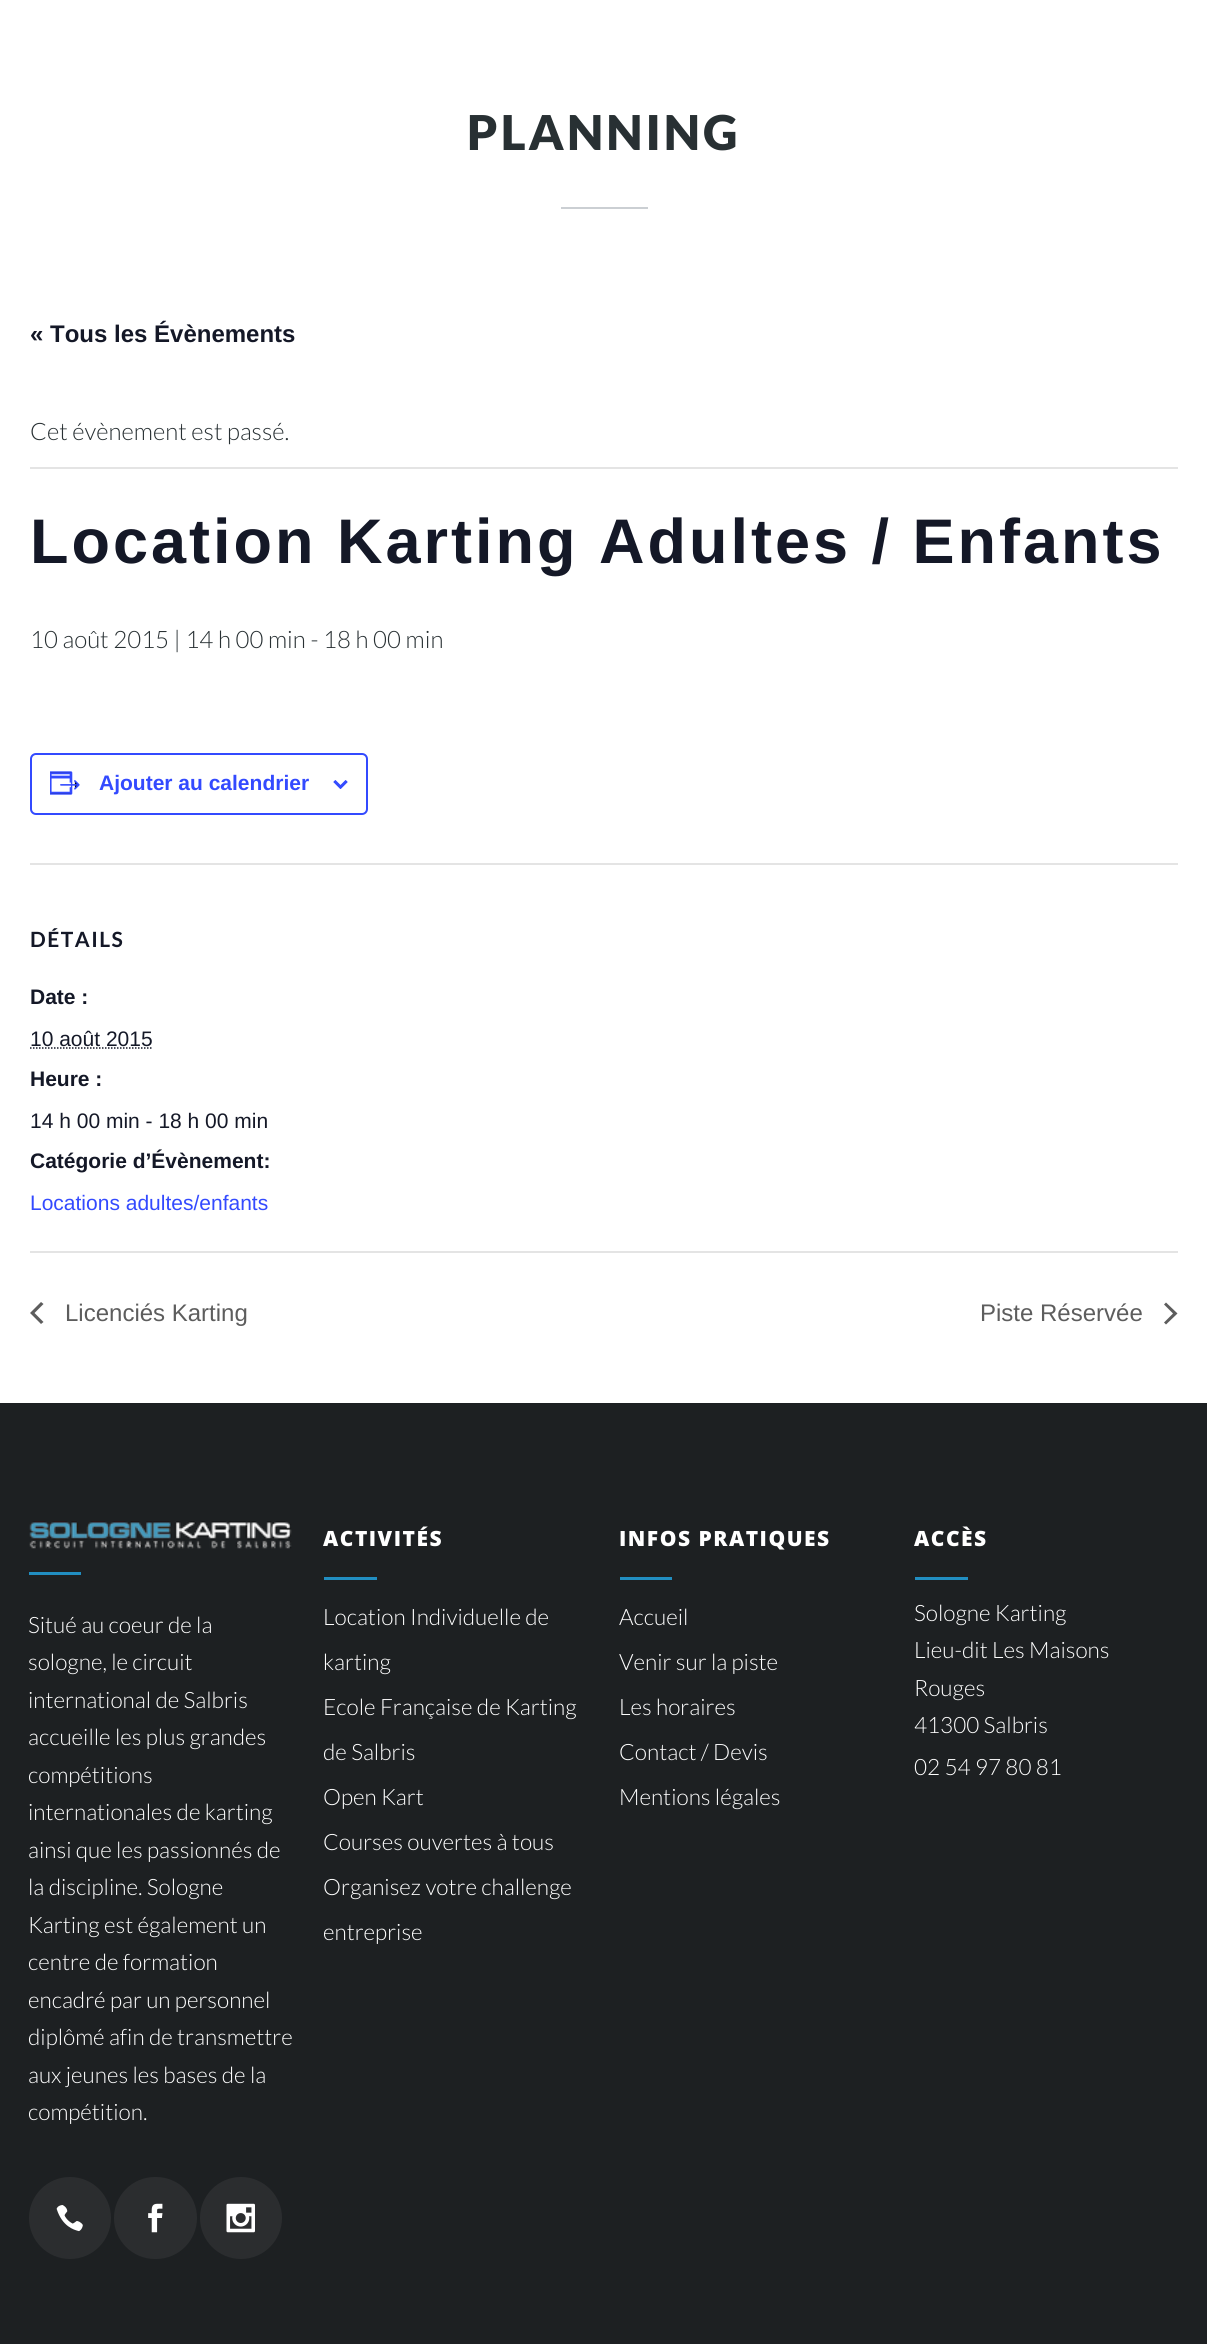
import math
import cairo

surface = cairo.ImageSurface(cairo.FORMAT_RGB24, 1207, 2344)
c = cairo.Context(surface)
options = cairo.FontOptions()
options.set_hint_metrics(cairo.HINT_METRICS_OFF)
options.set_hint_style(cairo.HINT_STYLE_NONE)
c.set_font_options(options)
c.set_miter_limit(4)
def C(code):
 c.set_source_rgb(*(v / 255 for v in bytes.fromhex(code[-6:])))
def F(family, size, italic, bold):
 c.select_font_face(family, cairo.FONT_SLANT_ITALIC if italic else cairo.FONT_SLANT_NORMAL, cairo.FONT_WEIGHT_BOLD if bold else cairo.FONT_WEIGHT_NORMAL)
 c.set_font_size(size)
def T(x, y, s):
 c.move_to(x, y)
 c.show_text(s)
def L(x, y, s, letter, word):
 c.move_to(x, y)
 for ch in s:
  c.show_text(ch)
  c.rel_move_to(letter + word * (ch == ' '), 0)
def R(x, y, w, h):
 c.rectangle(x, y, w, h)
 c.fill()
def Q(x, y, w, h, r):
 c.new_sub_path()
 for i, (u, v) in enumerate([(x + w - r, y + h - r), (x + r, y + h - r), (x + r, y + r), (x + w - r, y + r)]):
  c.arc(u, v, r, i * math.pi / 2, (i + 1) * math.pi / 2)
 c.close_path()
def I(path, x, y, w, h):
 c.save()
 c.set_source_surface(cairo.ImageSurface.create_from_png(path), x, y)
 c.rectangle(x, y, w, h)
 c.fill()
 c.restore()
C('ffffff')
c.paint()
F('Lato Black',48,0,0)
C('283033')
L(467,150,'PLANNING',3,0)
C('cbcfd3')
R(561,207,87,2)
F('Liberation Sans',24,0,1)
C('141827')
T(30,342,'« Tous les Évènements')
C('e4e4e4')
R(30,467,1148,2)
F('Lato Light',24,0,0)
C('283033')
T(30,440,'Cet évènement est passé.')
F('Liberation Sans',63,0,1)
C('141827')
L(30,563,'Location Karting Adultes / Enfants',3,0)
F('Lato Light',24,0,0)
C('283033')
T(30,648,'10 août 2015 | 14 h 00 min - 18 h 00 min')
Q(31,754,336,60,5)
C('334aff')
c.stroke()
I('1.png',50,771,30,24)
F('Liberation Sans',21,0,1)
T(99,790,'Ajouter au calendrier')
I('2.png',333,780,15,9)
C('e4e4e4')
R(30,863,1148,2)
F('Lato',21,0,1)
C('141827')
L(30,947,'DÉTAILS',1.5,0)
F('Liberation Sans',21,0,1)
T(30,1004,'Date :')
F('Liberation Sans',21,0,0)
T(30,1046,'10 août 2015')
c.new_path()
c.move_to(30,1048)
c.line_to(152.5,1048)
c.set_line_width(1.5)
c.set_dash([1.5,1.5])
c.stroke()
F('Liberation Sans',21,0,1)
T(30,1086,'Heure :')
F('Liberation Sans',21,0,0)
T(30,1128,'14 h 00 min - 18 h 00 min')
F('Liberation Sans',21,0,1)
T(30,1168,'Catégorie d’Évènement:')
F('Liberation Sans',21,0,0)
C('334aff')
T(30,1210,'Locations adultes/enfants')
C('e4e4e4')
R(30,1251,1148,2)
C('5d5d5d')
c.new_path()
c.move_to(43.5,1322)
c.line_to(41,1324)
c.line_to(30,1313)
c.line_to(41,1302)
c.line_to(43.5,1304)
c.line_to(34.5,1313)
c.close_path()
c.fill()
F('Liberation Sans',24,0,0)
T(65,1321,'Licenciés Karting')
T(980,1321,'Piste Réservée')
c.new_path()
c.move_to(1164,1304.5)
c.line_to(1166,1302.5)
c.line_to(1177.5,1313.5)
c.line_to(1166,1324.5)
c.line_to(1164,1322.5)
c.line_to(1173,1313.5)
c.close_path()
c.fill()
C('1d2022')
R(0,1403,1207,941)
I('3.png',29,1521,263,28)
C('218ec1')
R(29,1572,52,3)
F('Lato Light',22.5,0,0)
C('ffffff')
T(28,1633,'Situé au coeur de la')
T(28,1670,'sologne, le circuit')
T(28,1708,'international de Salbris')
T(28,1745,'accueille les plus grandes')
T(28,1783,'compétitions')
T(28,1820,'internationales de karting')
T(28,1858,'ainsi que les passionnés de')
T(28,1895,'la discipline. Sologne')
T(28,1933,'Karting est également un')
T(28,1970,'centre de formation')
T(28,2008,'encadré par un personnel')
T(28,2045,'diplômé afin de transmettre')
T(28,2083,'aux jeunes les bases de la')
T(28,2120,'compétition.')
C('2b2d2f')
c.new_path()
c.arc(70,2218,41,0,2 * math.pi)
c.fill()
I('4.png',56,2205,27,27)
Q(114,2177,83,82,41)
c.fill()
I('5.png',148,2203,15,30)
c.arc(241,2218,41,0,2 * math.pi)
c.fill()
I('6.png',226,2203,29,30)
F('Open Sans ExtraBold',21,0,0)
C('ffffff')
L(323,1546,'ACTIVITÉS',1.5,0)
C('218ec1')
R(324,1577,53,3)
F('Lato Light',22.5,0,0)
C('ffffff')
T(323,1625,'Location Individuelle de')
T(323,1670,'karting')
T(323,1715,'Ecole Française de Karting')
T(323,1760,'de Salbris')
T(323,1805,'Open Kart')
T(323,1850,'Courses ouvertes à tous')
T(323,1895,'Organisez votre challenge')
T(323,1940,'entreprise')
F('Open Sans ExtraBold',21,0,0)
L(619,1546,'INFOS PRATIQUES',1.5,0)
C('218ec1')
R(620,1577,52,3)
F('Lato Light',22.5,0,0)
C('ffffff')
T(619,1625,'Accueil')
T(619,1670,'Venir sur la piste')
T(619,1715,'Les horaires')
T(619,1760,'Contact / Devis')
T(619,1805,'Mentions légales')
F('Open Sans ExtraBold',21,0,0)
L(914,1546,'ACCÈS',1.5,0)
C('218ec1')
R(915,1577,53,3)
F('Lato Light',22.5,0,0)
C('ffffff')
T(914,1621,'Sologne Karting')
T(914,1658,'Lieu-dit Les Maisons')
T(914,1696,'Rouges')
T(914,1733,'41300 Salbris')
T(914,1775,'02 54 97 80 81')
surface.write_to_png('o.png')
